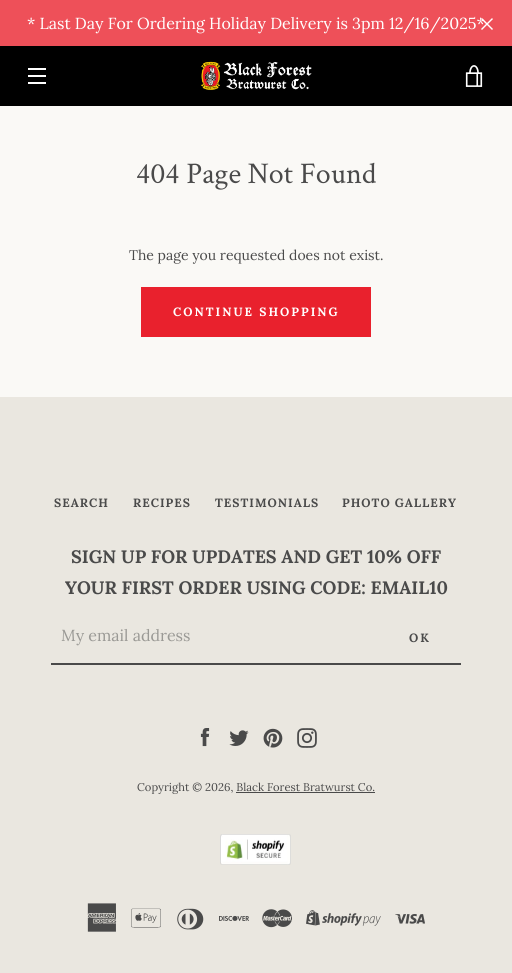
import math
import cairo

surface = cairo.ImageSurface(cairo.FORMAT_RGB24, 512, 973)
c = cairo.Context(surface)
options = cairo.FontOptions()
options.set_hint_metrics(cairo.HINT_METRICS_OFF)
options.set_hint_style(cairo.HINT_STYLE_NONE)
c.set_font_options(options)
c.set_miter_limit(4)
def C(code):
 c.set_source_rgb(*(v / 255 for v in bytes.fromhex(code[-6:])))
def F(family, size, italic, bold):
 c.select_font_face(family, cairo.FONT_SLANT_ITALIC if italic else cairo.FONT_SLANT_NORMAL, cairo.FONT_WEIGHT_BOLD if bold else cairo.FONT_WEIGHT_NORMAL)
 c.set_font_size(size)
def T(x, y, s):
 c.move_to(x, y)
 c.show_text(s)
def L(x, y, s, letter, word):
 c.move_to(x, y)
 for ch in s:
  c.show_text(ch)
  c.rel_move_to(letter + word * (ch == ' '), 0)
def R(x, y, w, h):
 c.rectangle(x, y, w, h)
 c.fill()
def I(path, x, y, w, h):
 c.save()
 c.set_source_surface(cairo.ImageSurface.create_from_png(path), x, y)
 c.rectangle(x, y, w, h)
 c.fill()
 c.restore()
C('eae7e0')
c.paint()
C('faf9f6')
R(0,106,512,291)
C('000000')
R(0,46,512,60)
C('ee5059')
R(0,0,512,46)
F('Lora',16,0,0)
C('ffffff')
T(27,29,'* Last Day For Ordering Holiday Delivery is 3pm 12/16/2025*')
I('1.png',481,18,12,12)
R(28,68,18,2)
R(28,75,18,2)
R(28,82,18,2)
I('2.png',200,61,112,30)
I('3.png',465,65,18,22)
F('Crimson Text',30,0,0)
C('4a4a4a')
T(136,183,'404 Page Not Found')
F('Lora',14,0,0)
T(129,260,'The page you requested does not exist.')
C('e9212d')
R(141,287,230,50)
F('Lora',12,0,1)
C('ffffff')
L(173,316,'CONTINUE SHOPPING',2,0)
C('4a4a4a')
L(54,507,'SEARCH',1,0)
L(133,507,'RECIPES',1,0)
L(215,507,'TESTIMONIALS',1,0)
L(342,507,'PHOTO GALLERY',1,0)
F('Lora',18,0,1)
T(71,563,'SIGN UP FOR UPDATES AND GET 10% OFF')
T(65,594,'YOUR FIRST ORDER USING CODE: EMAIL10')
R(51,663,410,2)
F('Lora',16,0,0)
C('9a9995')
T(61,641,'My email address')
F('Lora',12,0,1)
C('4a4a4a')
L(409,642,'OK',2,0)
I('4.png',200,728,10,19)
I('5.png',229,730,20,16)
I('6.png',263,728,20,20)
I('7.png',297,728,20,20)
F('Lora',11.2,0,0)
T(137,791,'Copyright © 2026, Black Forest Bratwurst Co.')
R(236,792,139,1)
I('8.png',220,834,71,31)
I('9.png',87,903,30,29)
I('10.png',131,908,30,20)
I('11.png',177,908,27,22)
I('12.png',219,915,30,6)
I('13.png',262,909,30,19)
I('14.png',306,910,75,16)
I('15.png',395,914,30,10)
surface.write_to_png('o.png')
